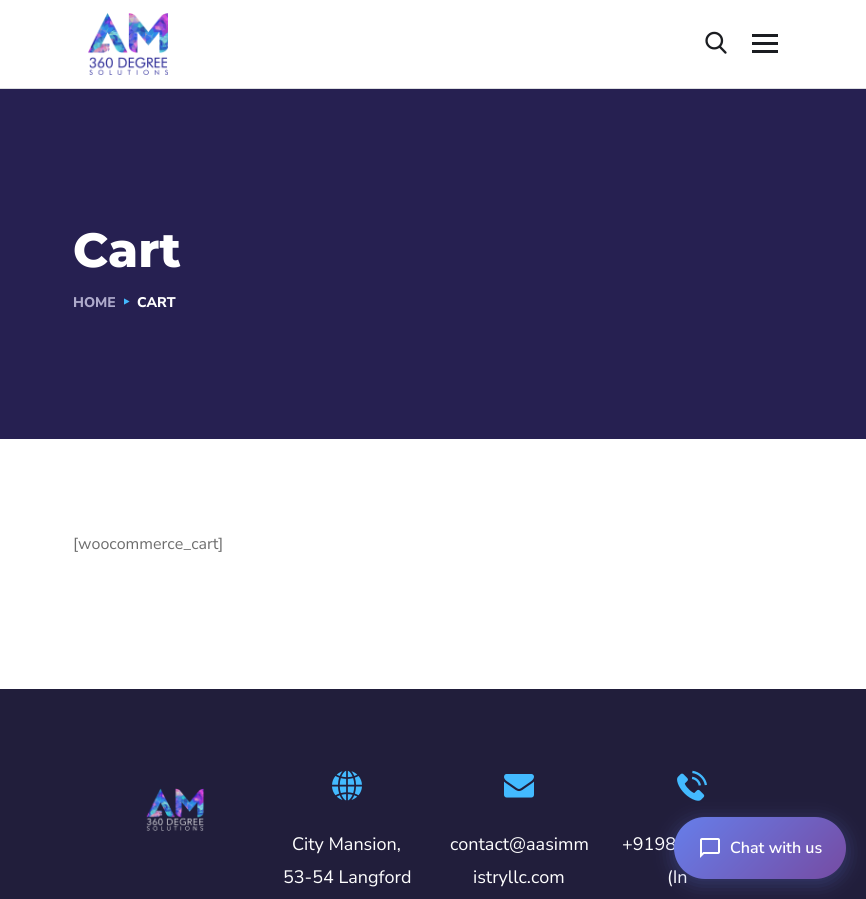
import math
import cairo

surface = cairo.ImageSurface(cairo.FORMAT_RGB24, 866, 899)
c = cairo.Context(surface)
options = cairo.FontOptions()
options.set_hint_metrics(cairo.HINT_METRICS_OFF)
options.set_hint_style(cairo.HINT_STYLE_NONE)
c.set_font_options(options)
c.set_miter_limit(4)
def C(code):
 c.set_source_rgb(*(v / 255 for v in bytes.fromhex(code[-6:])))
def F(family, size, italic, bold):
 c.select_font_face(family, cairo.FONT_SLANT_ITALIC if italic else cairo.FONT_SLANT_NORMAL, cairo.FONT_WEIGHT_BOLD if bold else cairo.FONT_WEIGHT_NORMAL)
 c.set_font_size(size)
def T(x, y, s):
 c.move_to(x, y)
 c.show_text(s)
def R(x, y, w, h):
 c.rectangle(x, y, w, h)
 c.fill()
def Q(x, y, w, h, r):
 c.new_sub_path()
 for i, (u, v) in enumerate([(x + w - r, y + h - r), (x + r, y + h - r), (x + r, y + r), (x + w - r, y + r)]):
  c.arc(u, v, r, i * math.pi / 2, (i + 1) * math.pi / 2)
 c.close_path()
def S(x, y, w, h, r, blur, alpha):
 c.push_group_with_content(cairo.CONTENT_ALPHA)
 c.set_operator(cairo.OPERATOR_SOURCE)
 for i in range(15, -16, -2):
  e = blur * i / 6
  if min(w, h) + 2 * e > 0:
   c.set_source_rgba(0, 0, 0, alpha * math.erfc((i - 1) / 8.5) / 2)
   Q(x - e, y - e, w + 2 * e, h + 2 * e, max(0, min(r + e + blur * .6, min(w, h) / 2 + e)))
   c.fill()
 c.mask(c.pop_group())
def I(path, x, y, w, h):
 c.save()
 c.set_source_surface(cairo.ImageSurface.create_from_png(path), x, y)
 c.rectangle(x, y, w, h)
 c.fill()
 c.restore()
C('ffffff')
c.paint()
C('dcdde1')
R(0,88,866,1)
I('1.png',88,13,80,62)
I('2.png',705,31,22,23)
C('1b1d21')
R(752,42,26,3)
R(752,34,26,3)
R(752,50,26,3)
C('262051')
R(0,89,866,350)
F('Montserrat ExtraBold',48,0,0)
C('ffffff')
T(73,267,'Cart')
F('Nunito Sans ExtraBold',14,0,0)
C('aeaacb')
T(73,307,'HOME')
I('3.png',124,298,6,7)
C('ffffff')
T(137,307,'CART')
F('Nunito Sans',16,0,0)
C('6d6d6d')
T(73,549,'[woocommerce_cart]')
C('211e3b')
R(0,689,866,210)
I('4.png',146,788,59,43)
I('5.png',332,770,30,31)
F('Nunito Sans',18,0,0)
C('ffffff')
T(292,850,'City Mansion,')
T(283,883,'53-54 Langford')
I('6.png',504,774,30,24)
T(450,850,'contact@aasimm')
T(473,883,'istryllc.com')
I('7.png',677,770,30,31)
T(622,850,'+9198')
T(667,883,'(In')
C('667eea')
S(674,821,172,62,31,10,.3)
gradient = cairo.LinearGradient(702,790,819,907)
gradient.add_color_stop_rgba(0,0.4,0.494,0.918,1)
gradient.add_color_stop_rgba(1,0.463,0.294,0.635,1)
c.set_source(gradient)
Q(674,817,172,62,31)
c.fill()
I('8.png',700,838,20,20)
F('Nunito Sans SemiBold',16,0,0)
C('ffffff')
T(730,853,'Chat with us')
surface.write_to_png('o.png')
